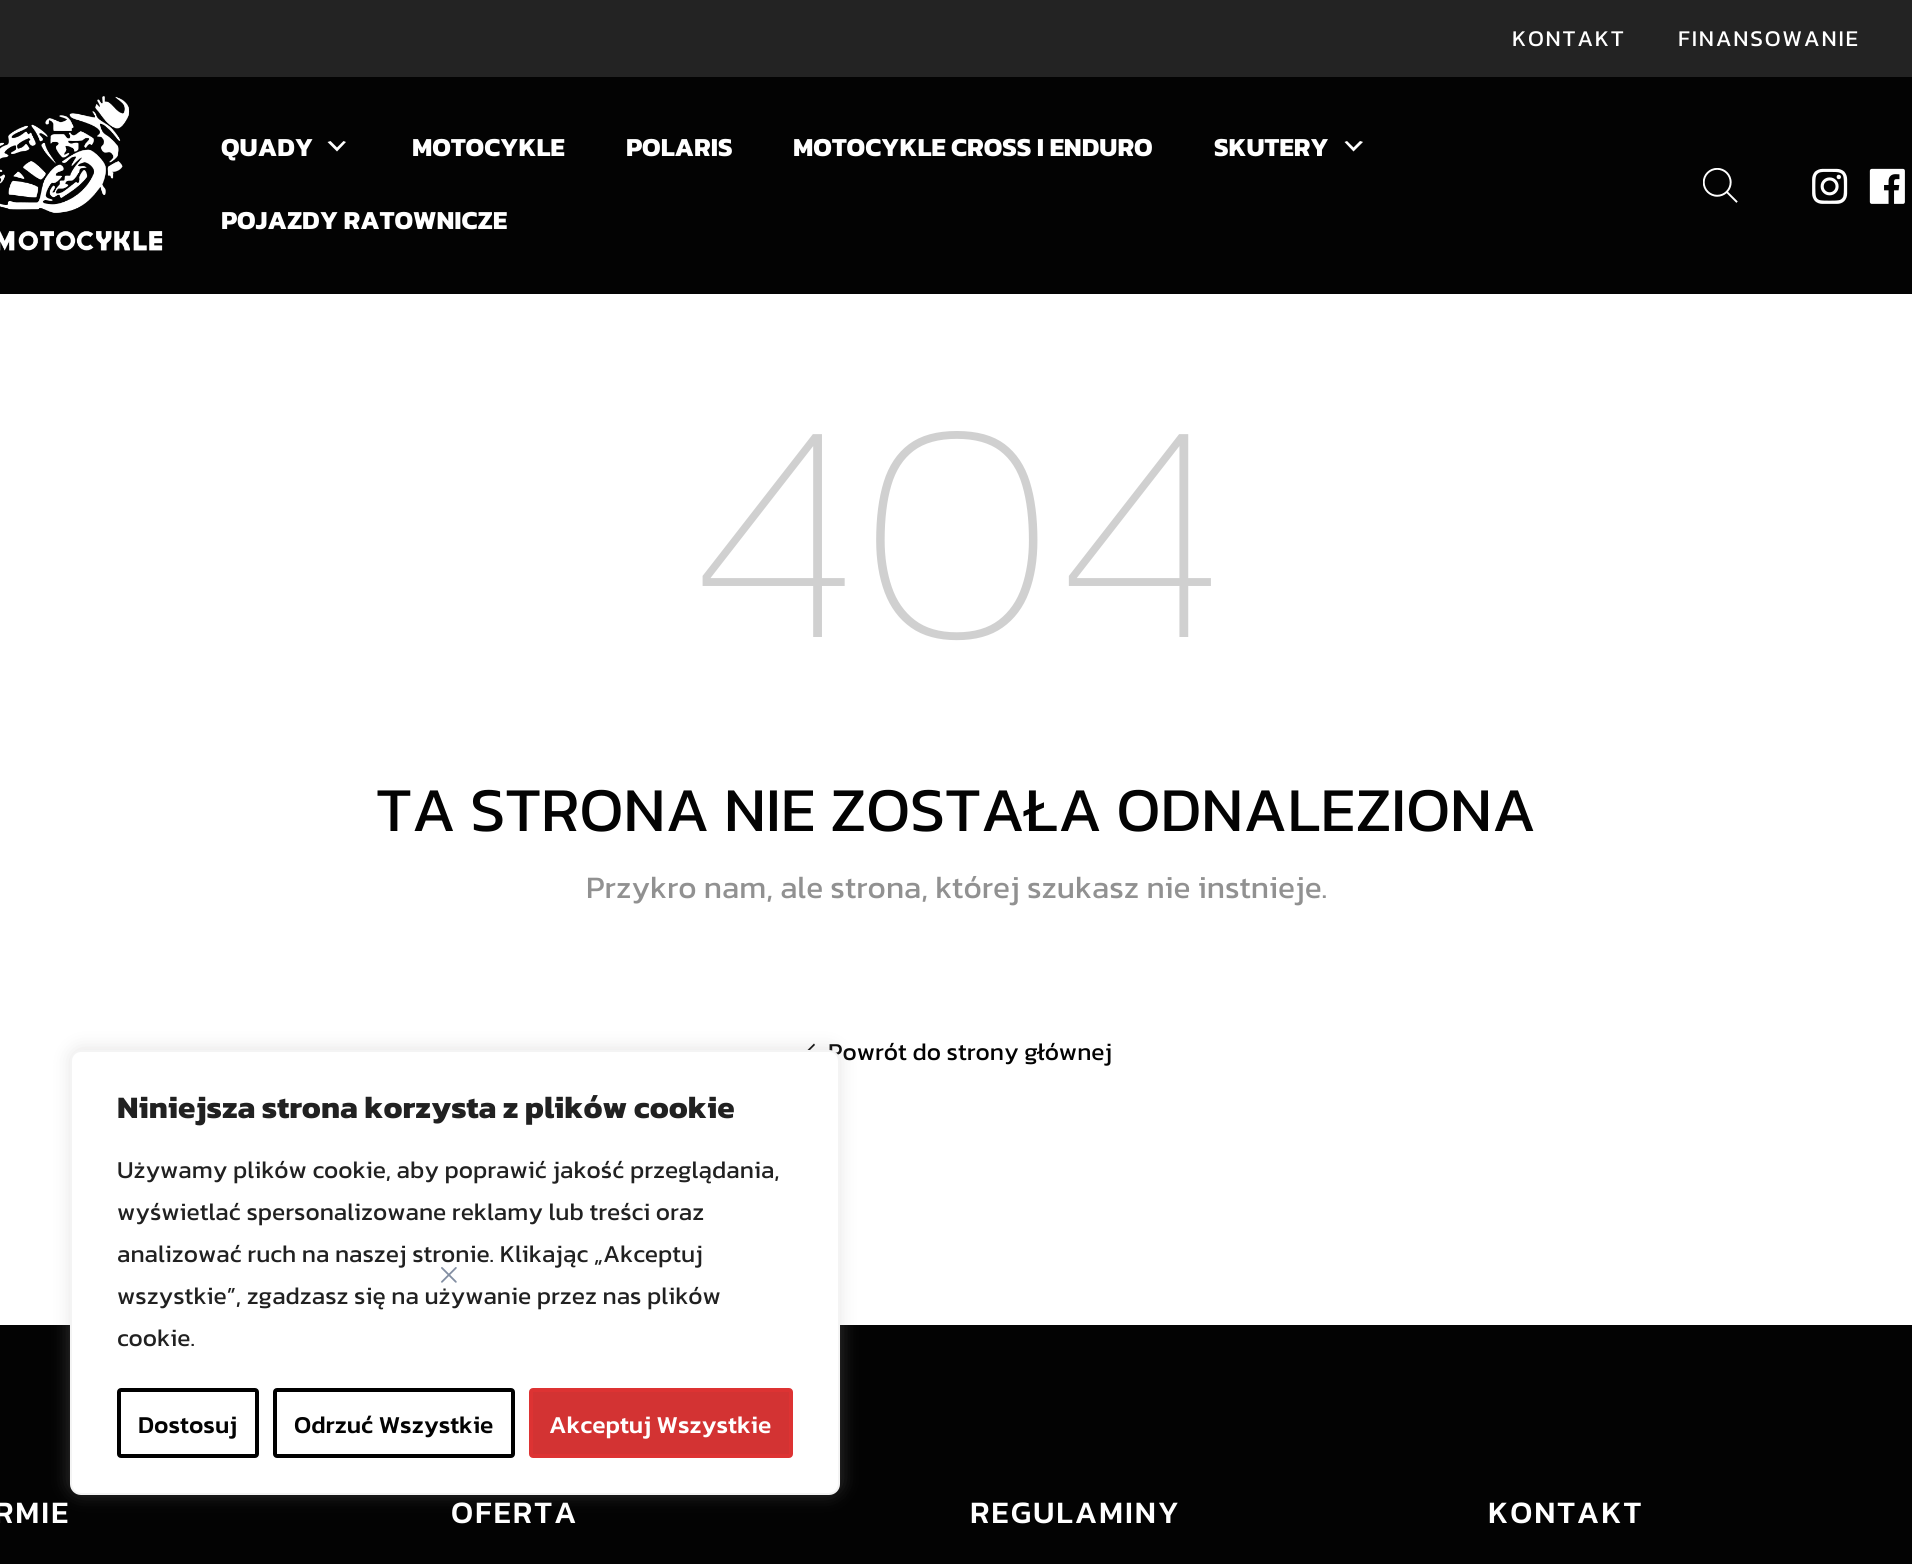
import math
import cairo

surface = cairo.ImageSurface(cairo.FORMAT_RGB24, 1912, 1564)
c = cairo.Context(surface)
options = cairo.FontOptions()
options.set_hint_metrics(cairo.HINT_METRICS_OFF)
options.set_hint_style(cairo.HINT_STYLE_NONE)
c.set_font_options(options)
c.set_miter_limit(4)
def C(code):
 c.set_source_rgb(*(v / 255 for v in bytes.fromhex(code[-6:])))
def F(family, size, italic, bold):
 c.select_font_face(family, cairo.FONT_SLANT_ITALIC if italic else cairo.FONT_SLANT_NORMAL, cairo.FONT_WEIGHT_BOLD if bold else cairo.FONT_WEIGHT_NORMAL)
 c.set_font_size(size)
def T(x, y, s):
 c.move_to(x, y)
 c.show_text(s)
def L(x, y, s, letter, word):
 c.move_to(x, y)
 for ch in s:
  c.show_text(ch)
  c.rel_move_to(letter + word * (ch == ' '), 0)
def R(x, y, w, h):
 c.rectangle(x, y, w, h)
 c.fill()
def Q(x, y, w, h, r):
 c.new_sub_path()
 for i, (u, v) in enumerate([(x + w - r, y + h - r), (x + r, y + h - r), (x + r, y + r), (x + w - r, y + r)]):
  c.arc(u, v, r, i * math.pi / 2, (i + 1) * math.pi / 2)
 c.close_path()
def S(x, y, w, h, r, blur, alpha):
 c.push_group_with_content(cairo.CONTENT_ALPHA)
 c.set_operator(cairo.OPERATOR_SOURCE)
 for i in range(15, -16, -2):
  e = blur * i / 6
  if min(w, h) + 2 * e > 0:
   c.set_source_rgba(0, 0, 0, alpha * math.erfc((i - 1) / 8.5) / 2)
   Q(x - e, y - e, w + 2 * e, h + 2 * e, max(0, min(r + e + blur * .6, min(w, h) / 2 + e)))
   c.fill()
 c.mask(c.pop_group())
def I(path, x, y, w, h):
 c.save()
 c.set_source_surface(cairo.ImageSurface.create_from_png(path), x, y)
 c.rectangle(x, y, w, h)
 c.fill()
 c.restore()
C('ffffff')
c.paint()
C('232323')
R(0,0,1912,77)
F('Kanit',22.75,0,0)
C('ffffff')
L(1512,46,'KONTAKT',1.75,0)
L(1678,46,'FINANSOWANIE',1.75,0)
C('030303')
R(0,77,1912,217)
I('1.png',0,96,163,155)
F('Kanit',26.25,0,1)
C('ffffff')
T(221,156,'QUADY')
c.new_path()
c.move_to(330.5,141)
c.line_to(337,147.5)
c.line_to(343.5,141)
c.line_to(346,142)
c.line_to(337,151.5)
c.line_to(327.5,142)
c.close_path()
c.fill()
T(412,156,'MOTOCYKLE')
T(626,156,'POLARIS')
T(793,156,'MOTOCYKLE CROSS I ENDURO')
T(1214,156,'SKUTERY')
c.new_path()
c.move_to(1347,141)
c.line_to(1353.5,147.5)
c.line_to(1360,141)
c.line_to(1363,142)
c.line_to(1353.5,151.5)
c.line_to(1344.5,142)
c.close_path()
c.fill()
T(221,229,'POJAZDY RATOWNICZE')
I('2.png',1703,168,35,35)
I('3.png',1812,168,36,36)
I('4.png',1869,168,36,36)
F('Kanit Thin',315,0,0)
C('d0d0d0')
T(690,637,'404')
F('Kanit',63,0,0)
C('030303')
T(376,831,'TA STRONA NIE ZOSTAŁA ODNALEZIONA')
F('Kanit',31.5,0,0)
C('919191')
T(586,898,'Przykro nam, ale strona, której szukasz nie instnieje.')
C('030303')
c.new_path()
c.move_to(814,1043.5)
c.line_to(805,1052.5)
c.line_to(814,1061)
c.line_to(815,1060)
c.line_to(807.5,1052.5)
c.line_to(815,1045)
c.close_path()
c.fill()
F('Kanit',24.5,0,0)
T(828,1060,'Powrót do strony głównej')
R(0,1325,1912,239)
F('Kanit Medium',31.5,0,0)
C('ffffff')
L(-6,1523,'RMIE',1.9,0)
L(451,1523,'OFERTA',1.9,0)
L(970,1523,'REGULAMINY',1.9,0)
L(1488,1523,'KONTAKT',1.9,0)
C('acabab')
S(70,1048,770,445,11,9,.3)
C('ffffff')
Q(71,1051,768,443,10)
c.fill_preserve()
C('f4f4f4')
c.stroke()
F('Kanit',31.5,0,1)
C('212121')
T(117,1118,'Niniejsza strona korzysta z plików cookie')
F('Kanit',24.5,0,0)
T(117,1178,'Używamy plików cookie, aby poprawić jakość przeglądania,')
T(117,1220,'wyświetlać spersonalizowane reklamy lub treści oraz')
T(117,1262,'analizować ruch na naszej stronie. Klikając „Akceptuj')
T(117,1304,'wszystkie”, zgadzasz się na używanie przez nas plików')
T(117,1346,'cookie.')
Q(119,1390,138,66,2)
C('000000')
c.set_line_width(4)
c.stroke()
F('Kanit Medium',24.5,0,0)
C('030303')
T(138,1433,'Dostosuj')
Q(275,1390,238,66,2)
C('000000')
c.stroke()
C('030303')
T(294,1433,'Odrzuć Wszystkie')
C('d33333')
Q(531,1390,260,66,2)
c.fill_preserve()
C('dd3333')
c.stroke()
C('ffffff')
T(549,1433,'Akceptuj Wszystkie')
I('5.png',441,1267,16,16)
surface.write_to_png('o.png')
